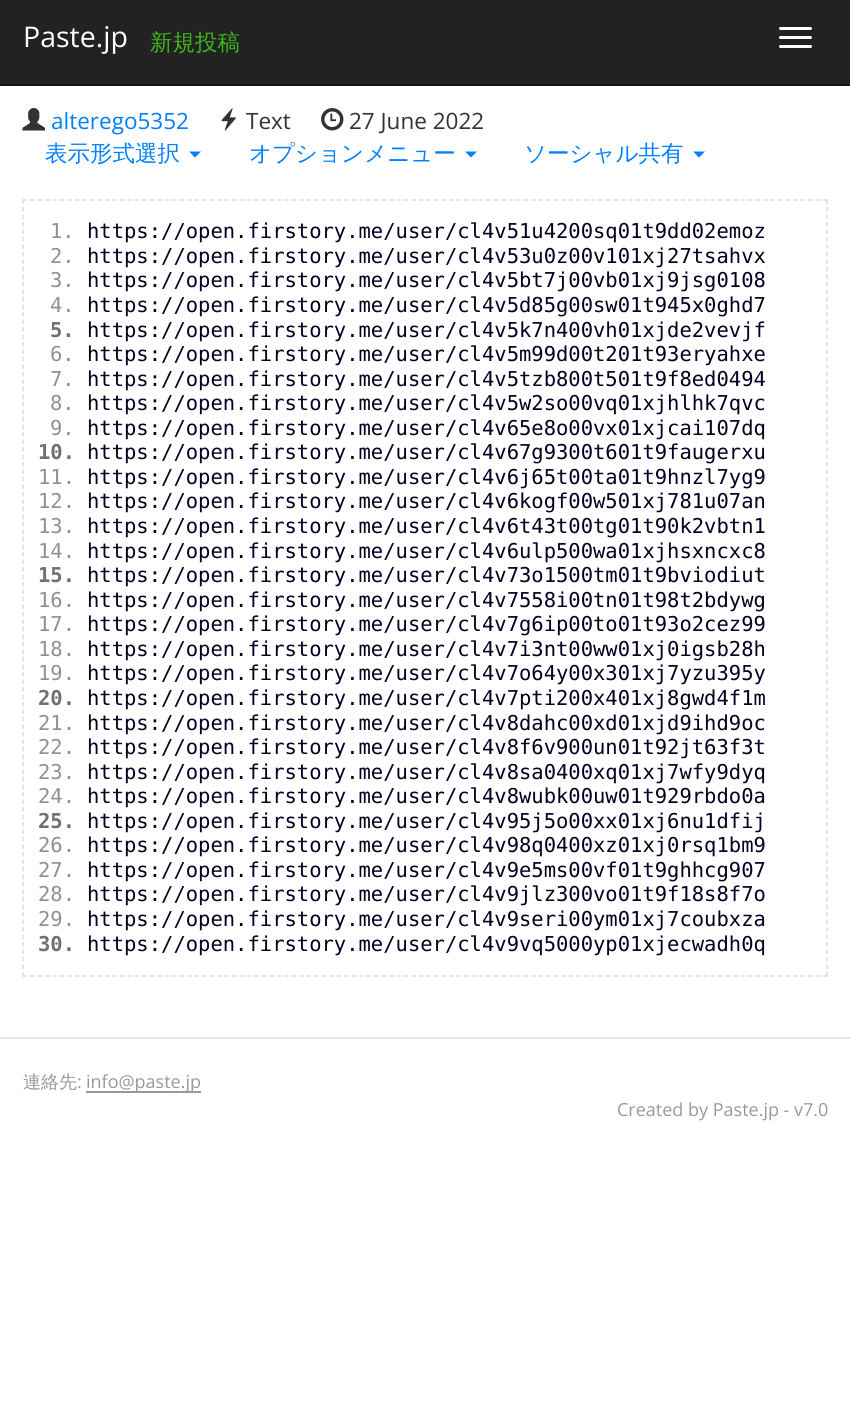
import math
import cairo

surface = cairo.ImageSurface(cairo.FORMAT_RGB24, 850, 1424)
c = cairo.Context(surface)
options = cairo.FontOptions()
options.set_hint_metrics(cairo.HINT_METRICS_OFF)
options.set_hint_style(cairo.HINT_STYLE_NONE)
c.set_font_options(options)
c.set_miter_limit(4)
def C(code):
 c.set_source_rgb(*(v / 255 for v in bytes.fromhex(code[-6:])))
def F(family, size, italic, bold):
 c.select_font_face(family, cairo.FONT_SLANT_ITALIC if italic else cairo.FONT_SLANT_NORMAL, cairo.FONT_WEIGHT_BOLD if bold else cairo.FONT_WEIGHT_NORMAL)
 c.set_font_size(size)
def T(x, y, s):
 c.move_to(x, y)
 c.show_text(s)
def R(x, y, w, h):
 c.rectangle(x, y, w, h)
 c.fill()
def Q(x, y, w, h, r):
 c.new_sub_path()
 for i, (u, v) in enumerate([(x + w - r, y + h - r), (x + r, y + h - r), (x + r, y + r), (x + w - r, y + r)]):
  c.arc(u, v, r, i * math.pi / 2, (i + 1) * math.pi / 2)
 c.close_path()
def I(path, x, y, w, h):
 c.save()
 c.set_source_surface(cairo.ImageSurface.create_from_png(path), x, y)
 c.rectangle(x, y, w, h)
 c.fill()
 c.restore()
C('ffffff')
c.paint()
C('222222')
R(0,0,850,84)
C('121212')
R(0,84,850,2)
F('Open Sans',28.5,0,0)
C('ffffff')
T(23,47,'Paste.jp')
F('WenQuanYi Zen Hei Medium',22.5,0,0)
C('3fb618')
T(150,50,'新規投稿')
C('ffffff')
Q(779,27,33,3,1.5)
c.fill()
Q(779,36,33,3,1.5)
c.fill()
Q(779,45,33,3,1.5)
c.fill()
I('1.png',22,108,23,23)
F('Open Sans',22.5,0,0)
C('007fff')
T(51,129,'alterego5352')
I('2.png',221,108,15,23)
C('333333')
T(246,129,'Text')
I('3.png',321,108,23,23)
T(349,129,'27 June 2022')
F('WenQuanYi Zen Hei Medium',22.5,0,0)
C('007fff')
T(45,161,'表示形式選択')
c.new_path()
c.move_to(189,151.5)
c.line_to(201,151.5)
c.line_to(195,157.5)
c.close_path()
c.fill()
T(249,161,'オプションメニュー')
c.new_path()
c.move_to(465,151.5)
c.line_to(477,151.5)
c.line_to(471,157.5)
c.close_path()
c.fill()
T(524,161,'ソーシャル共有')
c.new_path()
c.move_to(693,151.5)
c.line_to(705,151.5)
c.line_to(699,157.5)
c.close_path()
c.fill()
c.new_path()
c.move_to(22.5,200)
c.line_to(828,200)
C('dddddd')
c.set_line_width(1.5)
c.set_dash([4.5,2.98])
c.stroke()
c.new_path()
c.move_to(827,199.5)
c.line_to(827,976.5)
c.set_dash([4.5,3])
c.stroke()
c.new_path()
c.move_to(22.5,976)
c.line_to(828,976)
c.set_dash([4.5,2.98])
c.stroke()
c.new_path()
c.move_to(23,199.5)
c.line_to(23,976.5)
c.set_dash([4.5,3])
c.stroke()
F('DejaVu Sans Mono',20.5,0,0)
C('909090')
T(50,238,'1.')
C('000020')
T(87,238,'https://open.firstory.me/user/cl4v51u4200sq01t9dd02emoz')
C('909090')
T(50,263,'2.')
C('000020')
T(87,263,'https://open.firstory.me/user/cl4v53u0z00v101xj27tsahvx')
C('909090')
T(50,287,'3.')
C('000020')
T(87,287,'https://open.firstory.me/user/cl4v5bt7j00vb01xj9jsg0108')
C('909090')
T(50,312,'4.')
C('000020')
T(87,312,'https://open.firstory.me/user/cl4v5d85g00sw01t945x0ghd7')
F('DejaVu Sans Mono',20.5,0,1)
C('707070')
T(50,337,'5.')
F('DejaVu Sans Mono',20.5,0,0)
C('000020')
T(87,337,'https://open.firstory.me/user/cl4v5k7n400vh01xjde2vevjf')
C('909090')
T(50,361,'6.')
C('000020')
T(87,361,'https://open.firstory.me/user/cl4v5m99d00t201t93eryahxe')
C('909090')
T(50,386,'7.')
C('000020')
T(87,386,'https://open.firstory.me/user/cl4v5tzb800t501t9f8ed0494')
C('909090')
T(50,410,'8.')
C('000020')
T(87,410,'https://open.firstory.me/user/cl4v5w2so00vq01xjhlhk7qvc')
C('909090')
T(50,435,'9.')
C('000020')
T(87,435,'https://open.firstory.me/user/cl4v65e8o00vx01xjcai107dq')
F('DejaVu Sans Mono',20.5,0,1)
C('707070')
T(38,459,'10.')
F('DejaVu Sans Mono',20.5,0,0)
C('000020')
T(87,459,'https://open.firstory.me/user/cl4v67g9300t601t9faugerxu')
C('909090')
T(38,484,'11.')
C('000020')
T(87,484,'https://open.firstory.me/user/cl4v6j65t00ta01t9hnzl7yg9')
C('909090')
T(38,508,'12.')
C('000020')
T(87,508,'https://open.firstory.me/user/cl4v6kogf00w501xj781u07an')
C('909090')
T(38,533,'13.')
C('000020')
T(87,533,'https://open.firstory.me/user/cl4v6t43t00tg01t90k2vbtn1')
C('909090')
T(38,558,'14.')
C('000020')
T(87,558,'https://open.firstory.me/user/cl4v6ulp500wa01xjhsxncxc8')
F('DejaVu Sans Mono',20.5,0,1)
C('707070')
T(38,582,'15.')
F('DejaVu Sans Mono',20.5,0,0)
C('000020')
T(87,582,'https://open.firstory.me/user/cl4v73o1500tm01t9bviodiut')
C('909090')
T(38,607,'16.')
C('000020')
T(87,607,'https://open.firstory.me/user/cl4v7558i00tn01t98t2bdywg')
C('909090')
T(38,631,'17.')
C('000020')
T(87,631,'https://open.firstory.me/user/cl4v7g6ip00to01t93o2cez99')
C('909090')
T(38,656,'18.')
C('000020')
T(87,656,'https://open.firstory.me/user/cl4v7i3nt00ww01xj0igsb28h')
C('909090')
T(38,680,'19.')
C('000020')
T(87,680,'https://open.firstory.me/user/cl4v7o64y00x301xj7yzu395y')
F('DejaVu Sans Mono',20.5,0,1)
C('707070')
T(38,705,'20.')
F('DejaVu Sans Mono',20.5,0,0)
C('000020')
T(87,705,'https://open.firstory.me/user/cl4v7pti200x401xj8gwd4f1m')
C('909090')
T(38,730,'21.')
C('000020')
T(87,730,'https://open.firstory.me/user/cl4v8dahc00xd01xjd9ihd9oc')
C('909090')
T(38,754,'22.')
C('000020')
T(87,754,'https://open.firstory.me/user/cl4v8f6v900un01t92jt63f3t')
C('909090')
T(38,779,'23.')
C('000020')
T(87,779,'https://open.firstory.me/user/cl4v8sa0400xq01xj7wfy9dyq')
C('909090')
T(38,803,'24.')
C('000020')
T(87,803,'https://open.firstory.me/user/cl4v8wubk00uw01t929rbdo0a')
F('DejaVu Sans Mono',20.5,0,1)
C('707070')
T(38,828,'25.')
F('DejaVu Sans Mono',20.5,0,0)
C('000020')
T(87,828,'https://open.firstory.me/user/cl4v95j5o00xx01xj6nu1dfij')
C('909090')
T(38,852,'26.')
C('000020')
T(87,852,'https://open.firstory.me/user/cl4v98q0400xz01xj0rsq1bm9')
C('909090')
T(38,877,'27.')
C('000020')
T(87,877,'https://open.firstory.me/user/cl4v9e5ms00vf01t9ghhcg907')
C('909090')
T(38,901,'28.')
C('000020')
T(87,901,'https://open.firstory.me/user/cl4v9jlz300vo01t9f18s8f7o')
C('909090')
T(38,926,'29.')
C('000020')
T(87,926,'https://open.firstory.me/user/cl4v9seri00ym01xj7coubxza')
F('DejaVu Sans Mono',20.5,0,1)
C('707070')
T(38,951,'30.')
F('DejaVu Sans Mono',20.5,0,0)
C('000020')
T(87,951,'https://open.firstory.me/user/cl4v9vq5000yp01xjecwadh0q')
C('e6e6e6')
R(0,1037,850,2)
F('WenQuanYi Zen Hei Medium',18,0,0)
C('999999')
T(23,1088,'連絡先')
F('Open Sans',18,0,0)
T(77,1088,':')
R(86,1091,115,2)
T(86,1088,'info@paste.jp')
T(617,1116,'Created by Paste.jp - v7.0')
surface.write_to_png('o.png')
